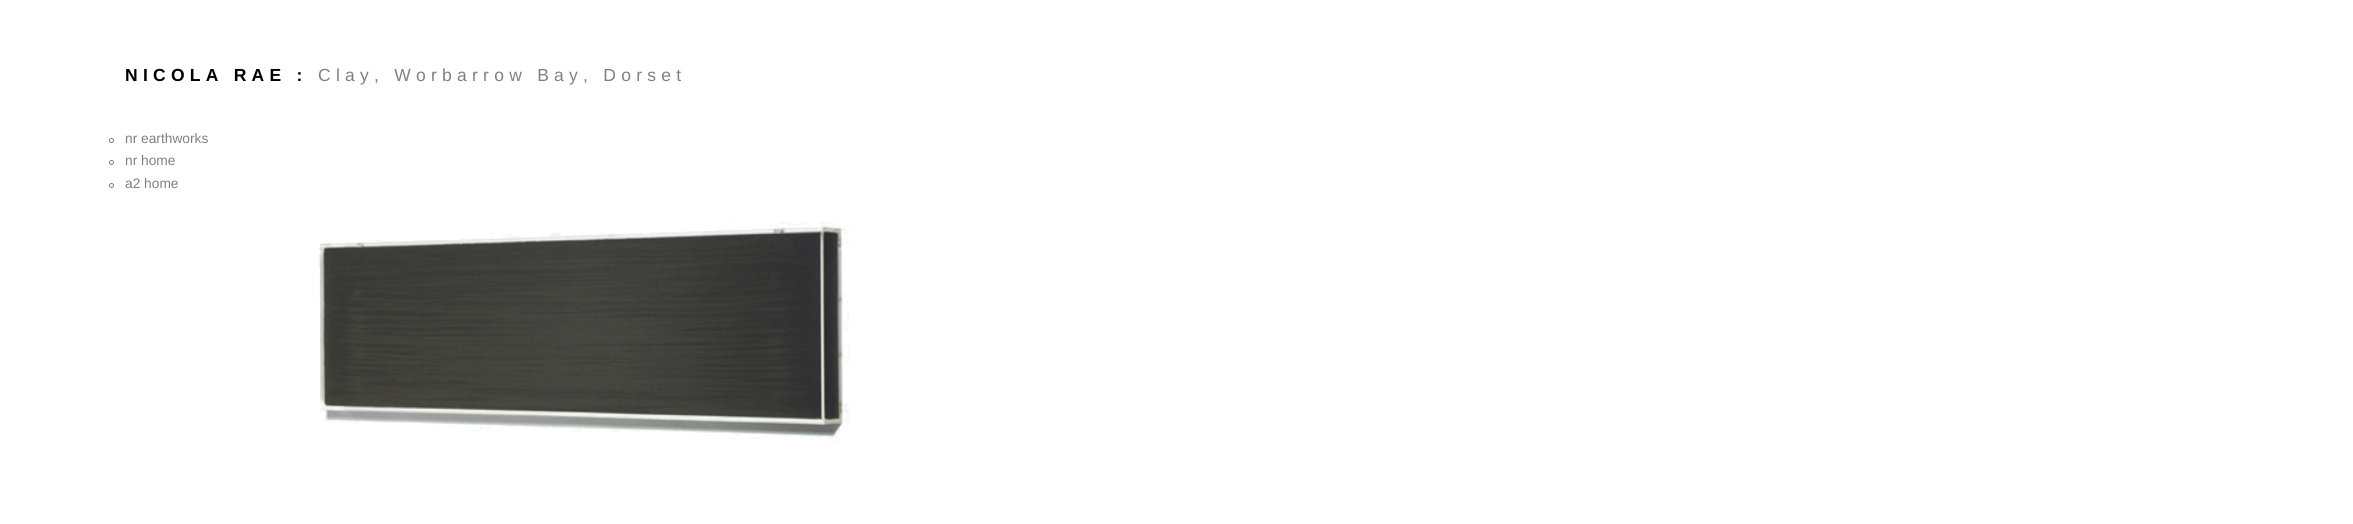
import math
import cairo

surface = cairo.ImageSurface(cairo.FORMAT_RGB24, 2353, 524)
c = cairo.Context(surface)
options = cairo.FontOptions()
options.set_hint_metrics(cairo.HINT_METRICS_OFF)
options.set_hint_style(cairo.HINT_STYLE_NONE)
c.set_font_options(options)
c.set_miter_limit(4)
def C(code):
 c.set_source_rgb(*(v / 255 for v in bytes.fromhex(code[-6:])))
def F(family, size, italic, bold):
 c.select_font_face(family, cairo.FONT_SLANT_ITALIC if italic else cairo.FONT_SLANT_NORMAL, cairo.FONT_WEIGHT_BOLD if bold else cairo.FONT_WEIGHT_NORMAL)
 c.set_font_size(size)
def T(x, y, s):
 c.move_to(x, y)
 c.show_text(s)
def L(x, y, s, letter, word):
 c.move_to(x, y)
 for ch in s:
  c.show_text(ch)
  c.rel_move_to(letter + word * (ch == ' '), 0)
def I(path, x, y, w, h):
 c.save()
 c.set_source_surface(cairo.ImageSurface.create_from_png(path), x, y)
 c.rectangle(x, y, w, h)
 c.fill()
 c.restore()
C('ffffff')
c.paint()
F('Liberation Sans',17.5,0,1)
C('000000')
L(125,81,'NICOLA RAE :',5.25,0)
F('Liberation Sans',17.5,0,0)
C('808080')
L(318,81,'Clay, Worbarrow Bay, Dorset',5.25,0)
c.new_path()
c.arc(111.5,140.5,2,0,2 * math.pi)
c.set_line_width(1)
c.stroke()
F('Liberation Sans',13.75,0,0)
T(125,143,'nr earthworks')
c.new_path()
c.arc(111.5,162.5,2,0,2 * math.pi)
c.stroke()
T(125,165,'nr home')
c.new_path()
c.arc(111.5,185.5,2,0,2 * math.pi)
c.stroke()
T(125,188,'a2 home')
I('1.png',317,222,533,221)
surface.write_to_png('o.png')
